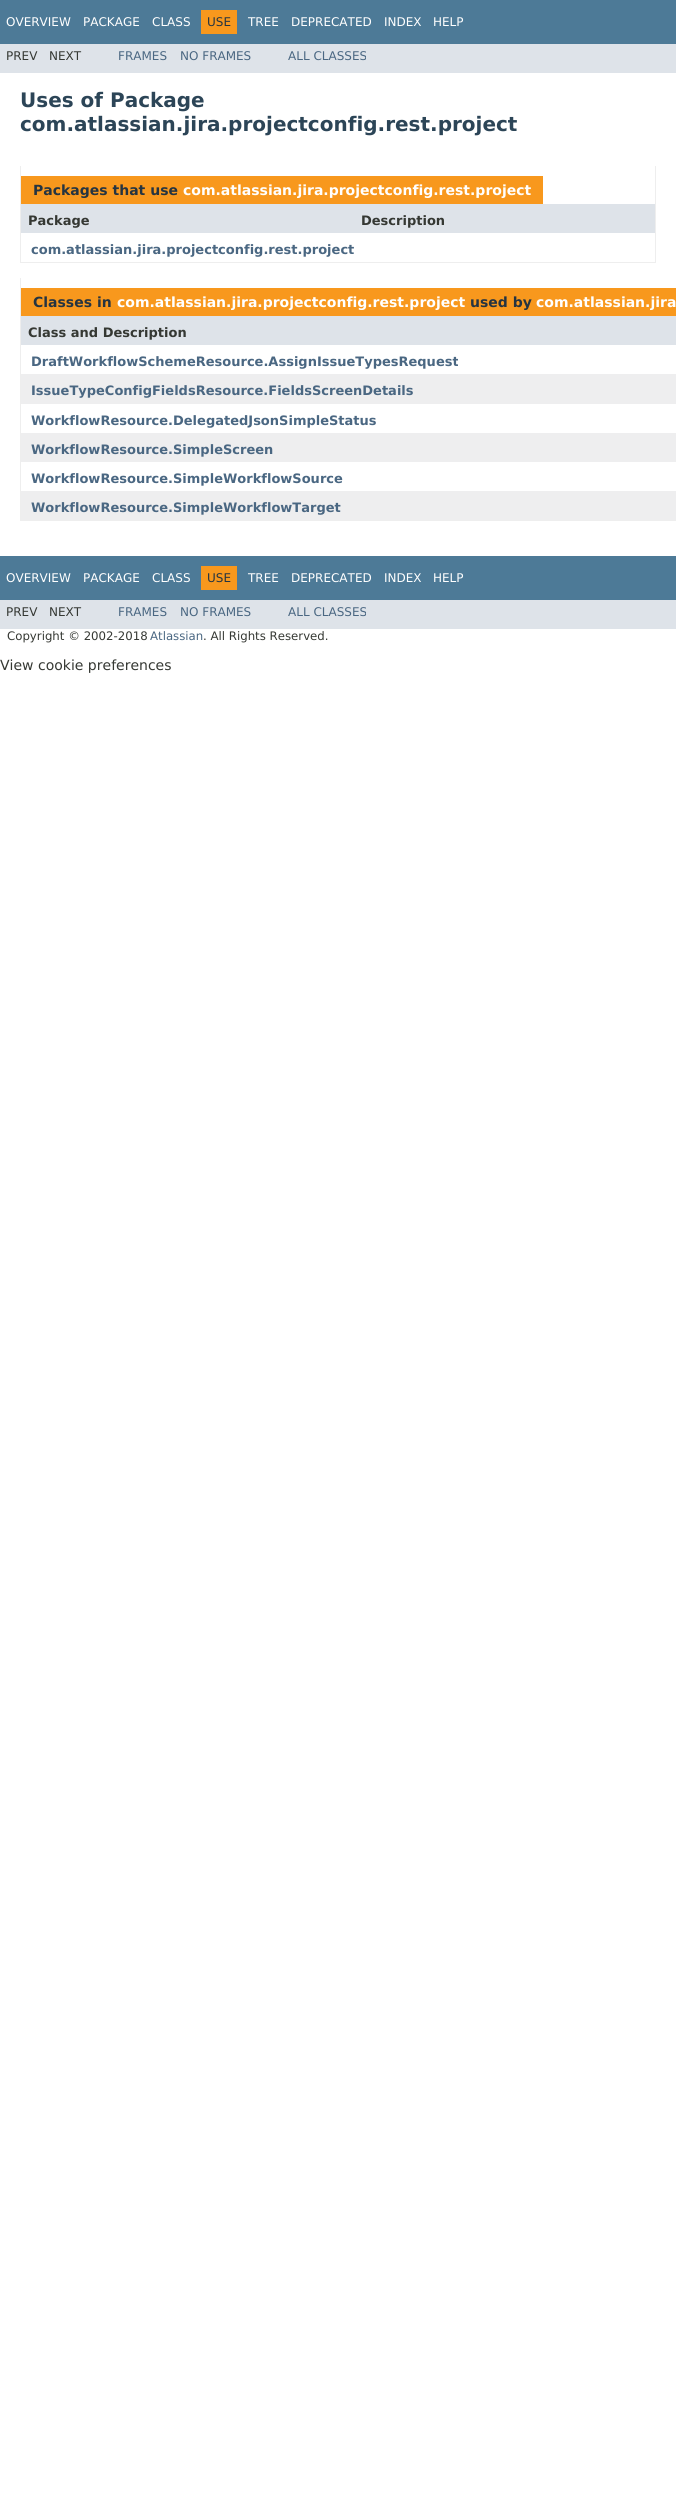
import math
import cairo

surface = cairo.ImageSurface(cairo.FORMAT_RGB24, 676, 2505)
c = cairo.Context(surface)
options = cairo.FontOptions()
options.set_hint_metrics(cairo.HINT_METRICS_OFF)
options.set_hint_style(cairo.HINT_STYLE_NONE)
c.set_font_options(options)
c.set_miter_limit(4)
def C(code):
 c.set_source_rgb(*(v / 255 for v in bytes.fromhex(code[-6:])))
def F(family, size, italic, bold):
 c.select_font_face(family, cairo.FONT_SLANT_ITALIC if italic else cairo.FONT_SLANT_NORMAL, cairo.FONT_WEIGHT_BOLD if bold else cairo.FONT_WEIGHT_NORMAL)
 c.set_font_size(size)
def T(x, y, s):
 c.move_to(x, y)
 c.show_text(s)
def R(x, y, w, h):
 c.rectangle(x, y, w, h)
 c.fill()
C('ffffff')
c.paint()
C('4d7a97')
R(0,0,676,44)
F('DejaVu Sans',12,0,0)
C('ffffff')
T(6,26,'OVERVIEW')
T(83,26,'PACKAGE')
T(152,26,'CLASS')
C('f8981d')
R(201,10,36,24)
C('253441')
T(207,26,'USE')
C('ffffff')
T(248,26,'TREE')
T(291,26,'DEPRECATED')
T(384,26,'INDEX')
T(433,26,'HELP')
C('dee3e9')
R(0,44,676,29)
C('353833')
T(6,60,'PREV')
T(49,60,'NEXT')
C('4a6782')
T(118,60,'FRAMES')
T(180,60,'NO FRAMES')
T(288,60,'ALL CLASSES')
F('DejaVu Sans',20,0,1)
C('2c4557')
T(20,107,'Uses of Package')
T(20,131,'com.atlassian.jira.projectconfig.rest.project')
C('eeeeee')
R(655,166,1,97)
R(20,262,636,1)
R(20,166,1,97)
C('f8981d')
R(21,176,522,28)
F('DejaVu Sans',14,0,1)
C('253441')
T(33,195,'Packages that use')
C('ffffff')
T(183,195,'com.atlassian.jira.projectconfig.rest.project')
C('dee3e9')
R(21,204,634,29)
F('DejaVu Sans',13,0,1)
C('353833')
T(28,225,'Package')
T(361,225,'Description')
C('4a6782')
T(31,254,'com.atlassian.jira.projectconfig.rest.project')
C('eeeeee')
R(20,520,656,1)
R(20,278,1,243)
C('f8981d')
R(21,288,655,28)
F('DejaVu Sans',14,0,1)
C('253441')
T(33,307,'Classes in')
C('ffffff')
T(117,307,'com.atlassian.jira.projectconfig.rest.project')
C('253441')
T(470,307,'used by')
C('ffffff')
T(536,307,'com.atlassian.jira')
C('dee3e9')
R(21,316,655,29)
F('DejaVu Sans',13,0,1)
C('353833')
T(28,337,'Class and Description')
C('4a6782')
T(31,366,'DraftWorkflowSchemeResource.AssignIssueTypesRequest')
C('eeeeef')
R(21,374,655,30)
C('4a6782')
T(31,395,'IssueTypeConfigFieldsResource.FieldsScreenDetails')
T(31,425,'WorkflowResource.DelegatedJsonSimpleStatus')
C('eeeeef')
R(21,433,655,29)
C('4a6782')
T(31,454,'WorkflowResource.SimpleScreen')
T(31,483,'WorkflowResource.SimpleWorkflowSource')
C('eeeeef')
R(21,491,655,29)
C('4a6782')
T(31,512,'WorkflowResource.SimpleWorkflowTarget')
C('4d7a97')
R(0,556,676,44)
F('DejaVu Sans',12,0,0)
C('ffffff')
T(6,582,'OVERVIEW')
T(83,582,'PACKAGE')
T(152,582,'CLASS')
C('f8981d')
R(201,566,36,24)
C('253441')
T(207,582,'USE')
C('ffffff')
T(248,582,'TREE')
T(291,582,'DEPRECATED')
T(384,582,'INDEX')
T(433,582,'HELP')
C('dee3e9')
R(0,600,676,29)
C('353833')
T(6,616,'PREV')
T(49,616,'NEXT')
C('4a6782')
T(118,616,'FRAMES')
T(180,616,'NO FRAMES')
T(288,616,'ALL CLASSES')
F('DejaVu Sans',11.75,0,0)
C('353833')
T(7,640,'Copyright © 2002-2018')
C('4a6782')
T(150,640,'Atlassian')
C('353833')
T(203,640,'. All Rights Reserved.')
F('DejaVu Sans',14,0,0)
T(0,670,'View cookie preferences')
surface.write_to_png('o.png')
